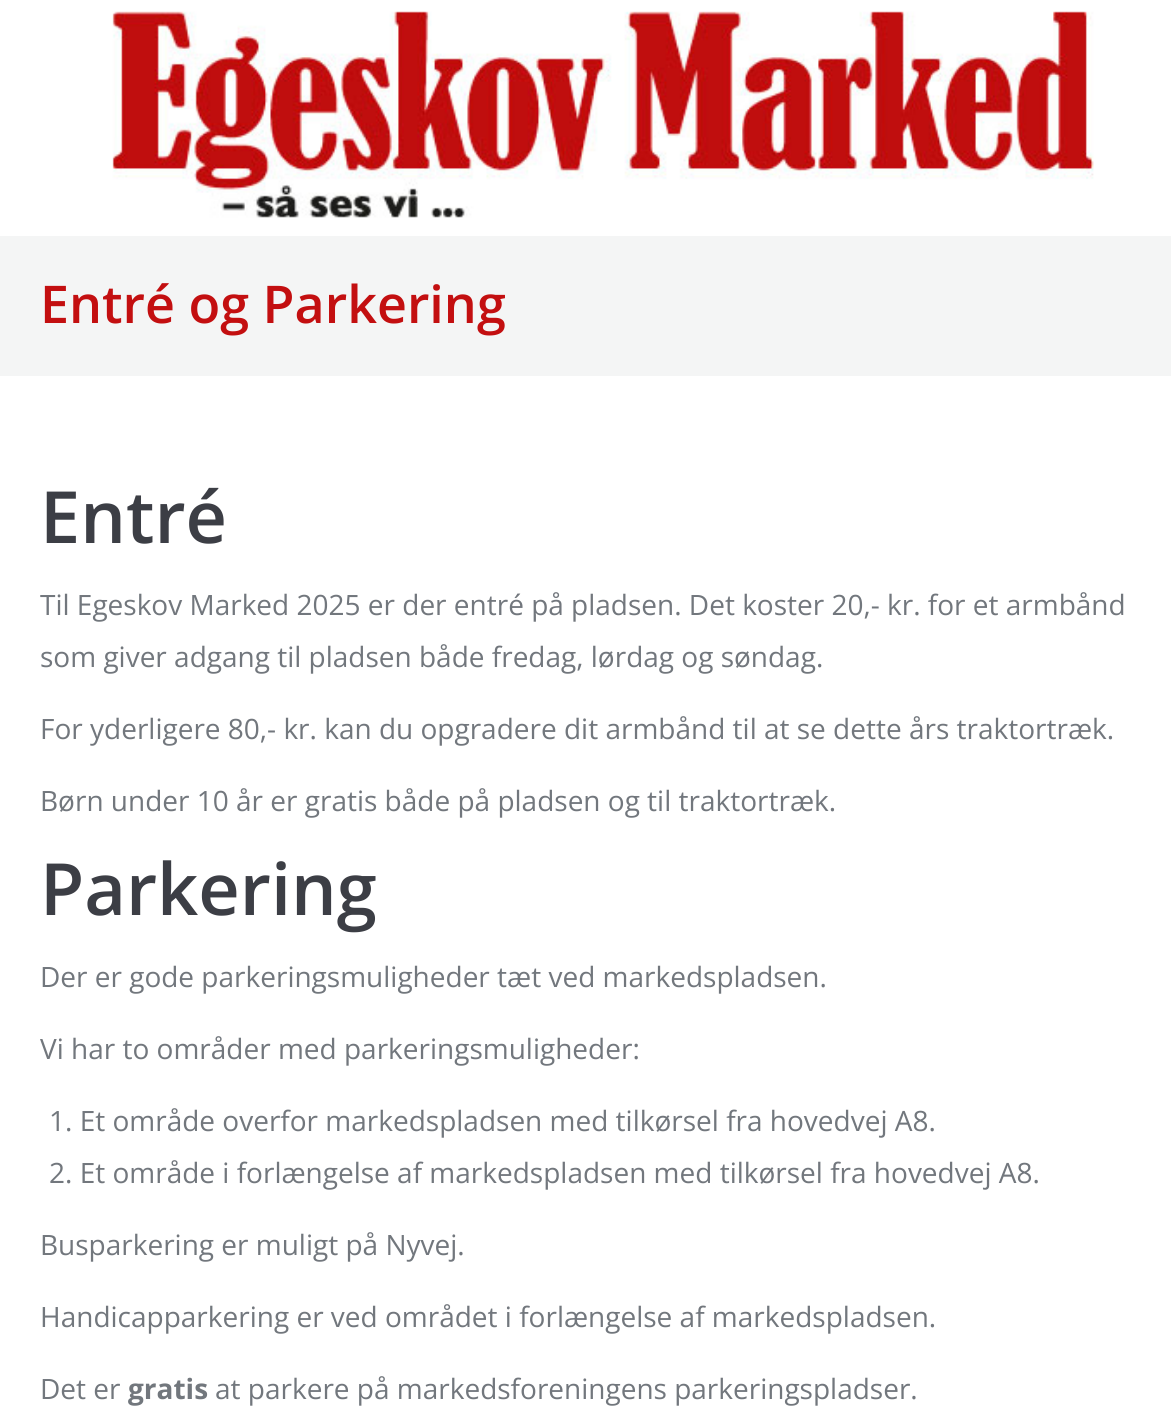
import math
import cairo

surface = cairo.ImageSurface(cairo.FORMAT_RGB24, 1171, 1413)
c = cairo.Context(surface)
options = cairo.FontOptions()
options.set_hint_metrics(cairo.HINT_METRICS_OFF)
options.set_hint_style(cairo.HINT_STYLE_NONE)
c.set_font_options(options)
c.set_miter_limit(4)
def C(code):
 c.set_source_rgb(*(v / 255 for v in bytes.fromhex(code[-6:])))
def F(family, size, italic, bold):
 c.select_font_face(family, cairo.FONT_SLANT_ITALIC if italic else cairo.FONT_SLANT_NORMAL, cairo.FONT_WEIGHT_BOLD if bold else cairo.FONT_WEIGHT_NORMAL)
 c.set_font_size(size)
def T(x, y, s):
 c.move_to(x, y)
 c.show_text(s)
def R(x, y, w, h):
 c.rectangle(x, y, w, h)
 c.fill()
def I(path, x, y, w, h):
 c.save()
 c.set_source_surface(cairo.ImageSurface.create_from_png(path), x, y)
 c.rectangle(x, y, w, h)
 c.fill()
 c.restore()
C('ffffff')
c.paint()
I('1.png',112,11,982,207)
C('f4f5f5')
R(0,236,1171,140)
F('Open Sans SemiBold',52,0,0)
C('c30f10')
T(40,323,'Entré og Parkering')
F('Open Sans SemiBold',72,0,0)
C('3c3e45')
T(40,543,'Entré')
F('Open Sans',28,0,0)
C('72777d')
T(40,615,'Til Egeskov Marked 2025 er der entré på pladsen. Det koster 20,- kr. for et armbånd')
T(40,667,'som giver adgang til pladsen både fredag, lørdag og søndag.')
T(40,739,'For yderligere 80,- kr. kan du opgradere dit armbånd til at se dette års traktortræk.')
T(40,811,'Børn under 10 år er gratis både på pladsen og til traktortræk.')
F('Open Sans SemiBold',72,0,0)
C('3c3e45')
T(40,915,'Parkering')
F('Open Sans',28,0,0)
C('72777d')
T(40,987,'Der er gode parkeringsmuligheder tæt ved markedspladsen.')
T(40,1059,'Vi har to områder med parkeringsmuligheder:')
T(49,1131,'1. Et område overfor markedspladsen med tilkørsel fra hovedvej A8.')
T(49,1183,'2. Et område i forlængelse af markedspladsen med tilkørsel fra hovedvej A8.')
T(40,1255,'Busparkering er muligt på Nyvej.')
T(40,1327,'Handicapparkering er ved området i forlængelse af markedspladsen.')
T(40,1399,'Det er')
F('Open Sans',28,0,1)
T(128,1399,'gratis')
F('Open Sans',28,0,0)
T(215,1399,'at parkere på markedsforeningens parkeringspladser.')
surface.write_to_png('o.png')
